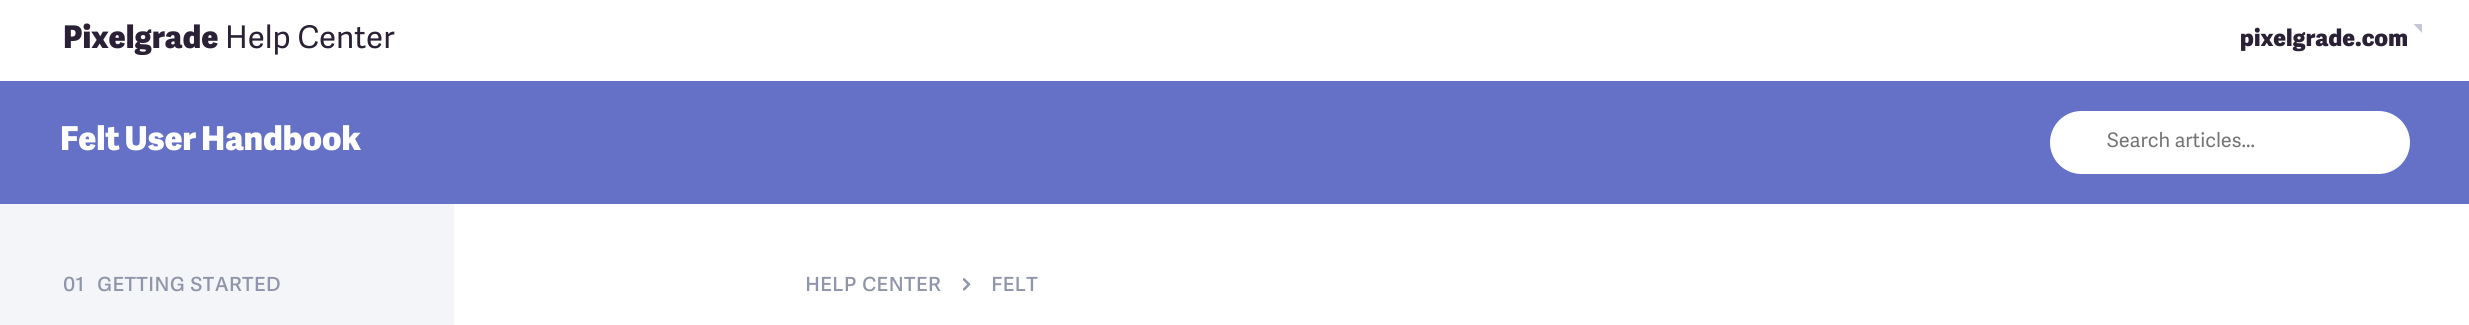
import math
import cairo

surface = cairo.ImageSurface(cairo.FORMAT_RGB24, 2469, 325)
c = cairo.Context(surface)
options = cairo.FontOptions()
options.set_hint_metrics(cairo.HINT_METRICS_OFF)
options.set_hint_style(cairo.HINT_STYLE_NONE)
c.set_font_options(options)
c.set_miter_limit(4)
def C(code):
 c.set_source_rgb(*(v / 255 for v in bytes.fromhex(code[-6:])))
def F(family, size, italic, bold):
 c.select_font_face(family, cairo.FONT_SLANT_ITALIC if italic else cairo.FONT_SLANT_NORMAL, cairo.FONT_WEIGHT_BOLD if bold else cairo.FONT_WEIGHT_NORMAL)
 c.set_font_size(size)
def T(x, y, s):
 c.move_to(x, y)
 c.show_text(s)
def R(x, y, w, h):
 c.rectangle(x, y, w, h)
 c.fill()
def Q(x, y, w, h, r):
 c.new_sub_path()
 for i, (u, v) in enumerate([(x + w - r, y + h - r), (x + r, y + h - r), (x + r, y + r), (x + w - r, y + r)]):
  c.arc(u, v, r, i * math.pi / 2, (i + 1) * math.pi / 2)
 c.close_path()
def I(path, x, y, w, h):
 c.save()
 c.set_source_surface(cairo.ImageSurface.create_from_png(path), x, y)
 c.rectangle(x, y, w, h)
 c.fill()
 c.restore()
C('ffffff')
c.paint()
C('6471c7')
R(0,81,2469,123)
F('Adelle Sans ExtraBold',31.25,0,0)
C('2a2136')
T(63,48,'Pixelgrade')
F('Adelle Sans',31.25,0,0)
T(225,48,'Help Center')
F('Adelle Sans ExtraBold',23.25,0,0)
T(2240,46,'pixelgrade.com')
C('c4c7d5')
c.new_path()
c.move_to(2422,33)
c.line_to(2413.5,24)
c.line_to(2422,24)
c.close_path()
c.fill()
F('Adelle Sans ExtraBold',32.9,0,0)
C('ffffff')
T(60,150,'Felt User Handbook')
Q(2050,111,360,63,31.5)
c.fill()
F('Adelle Sans',20,0,0)
C('757575')
T(2107,147,'Search articles...')
C('f4f5f8')
R(0,204,454,121)
F('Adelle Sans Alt',25.5,0,0)
C('9195ab')
T(63,291,'01')
T(97,291,'Getting Started')
T(805,291,'Help Center')
I('1.png',963,278,8,13)
T(991,291,'Felt')
surface.write_to_png('o.png')
